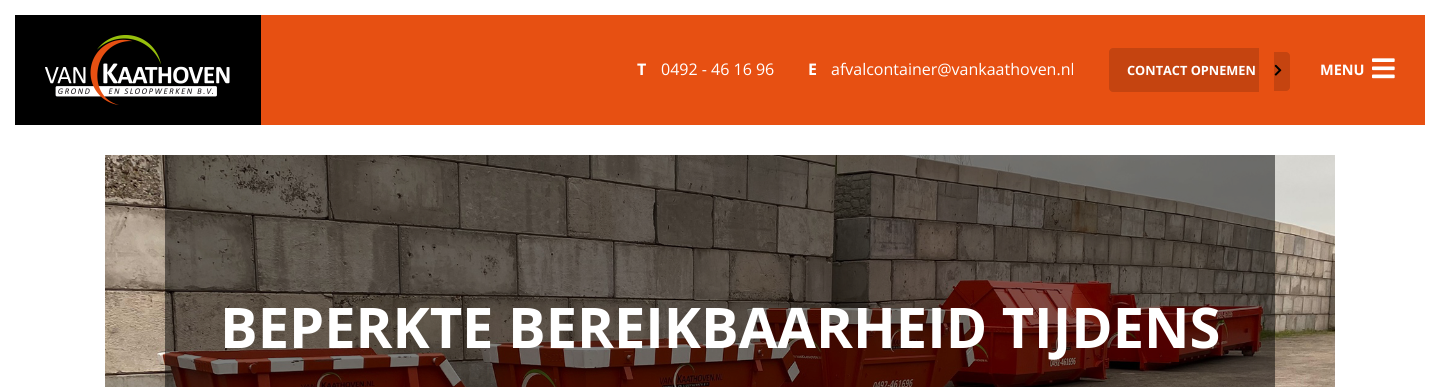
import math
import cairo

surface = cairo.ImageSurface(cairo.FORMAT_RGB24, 1440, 387)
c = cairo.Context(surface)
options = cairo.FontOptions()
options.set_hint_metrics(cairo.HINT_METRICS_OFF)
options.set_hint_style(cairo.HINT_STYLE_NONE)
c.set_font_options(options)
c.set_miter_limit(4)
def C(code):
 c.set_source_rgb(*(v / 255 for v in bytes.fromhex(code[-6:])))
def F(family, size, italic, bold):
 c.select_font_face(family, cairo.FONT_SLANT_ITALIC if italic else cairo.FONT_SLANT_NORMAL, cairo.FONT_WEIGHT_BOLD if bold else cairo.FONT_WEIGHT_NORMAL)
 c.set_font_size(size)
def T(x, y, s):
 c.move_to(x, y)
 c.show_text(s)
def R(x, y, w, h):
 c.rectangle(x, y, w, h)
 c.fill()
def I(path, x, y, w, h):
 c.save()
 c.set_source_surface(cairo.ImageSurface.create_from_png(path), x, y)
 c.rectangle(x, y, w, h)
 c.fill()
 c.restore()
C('ffffff')
c.paint()
C('e75012')
R(261,15,1164,110)
C('000000')
R(15,15,246,110)
I('1.png',45,35,185,70)
F('Open Sans',16,0,1)
C('ffffff')
T(637,75,'T')
F('Open Sans',16,0,0)
T(661,75,'0492 - 46 16 96')
F('Open Sans',16,0,1)
T(808,75,'E')
F('Open Sans',16,0,0)
T(831,75,'afvalcontainer@vankaathoven.nl')
C('c54410')
c.new_path()
c.move_to(1114,48)
c.line_to(1259,48)
c.line_to(1259,92)
c.line_to(1114,92)
c.curve_to(1111,92,1109,90,1109,87)
c.line_to(1109,53)
c.curve_to(1109,50,1111,48,1114,48)
c.close_path()
c.fill()
c.set_fill_rule(cairo.FILL_RULE_EVEN_ODD)
c.new_path()
c.move_to(1114,48)
c.line_to(1259,48)
c.line_to(1259,92)
c.line_to(1114,92)
c.curve_to(1111,92,1109,90,1109,87)
c.line_to(1109,53)
c.curve_to(1109,50,1111,48,1114,48)
c.close_path()
c.move_to(1114,51)
c.line_to(1259,51)
c.line_to(1259,89)
c.line_to(1114,89)
c.curve_to(1113,89,1112,88,1112,87)
c.line_to(1112,53)
c.curve_to(1112,52,1113,51,1114,51)
c.close_path()
c.fill()
c.new_path()
c.move_to(1274,52)
c.line_to(1285,52)
c.curve_to(1288,52,1290,54,1290,57)
c.line_to(1290,86)
c.curve_to(1290,89,1288,91,1285,91)
c.line_to(1274,91)
c.close_path()
c.fill()
c.new_path()
c.move_to(1274,52)
c.line_to(1285,52)
c.curve_to(1288,52,1290,54,1290,57)
c.line_to(1290,86)
c.curve_to(1290,89,1288,91,1285,91)
c.line_to(1274,91)
c.close_path()
c.move_to(1274,55)
c.line_to(1285,55)
c.curve_to(1286,55,1287,56,1287,57)
c.line_to(1287,86)
c.curve_to(1287,87,1286,88,1285,88)
c.line_to(1274,88)
c.close_path()
c.fill()
F('Open Sans',12.75,0,1)
C('ffffff')
T(1127,75,'CONTACT OPNEMEN')
I('2.png',1274,64,8,12)
F('Open Sans',14.5,0,1)
T(1320,75,'MENU')
I('3.png',1372,58,23,21)
I('4.png',105,155,1230,232)
F('Open Sans',56,0,1)
T(220,348,'BEPERKTE BEREIKBAARHEID TIJDENS')
surface.write_to_png('o.png')
